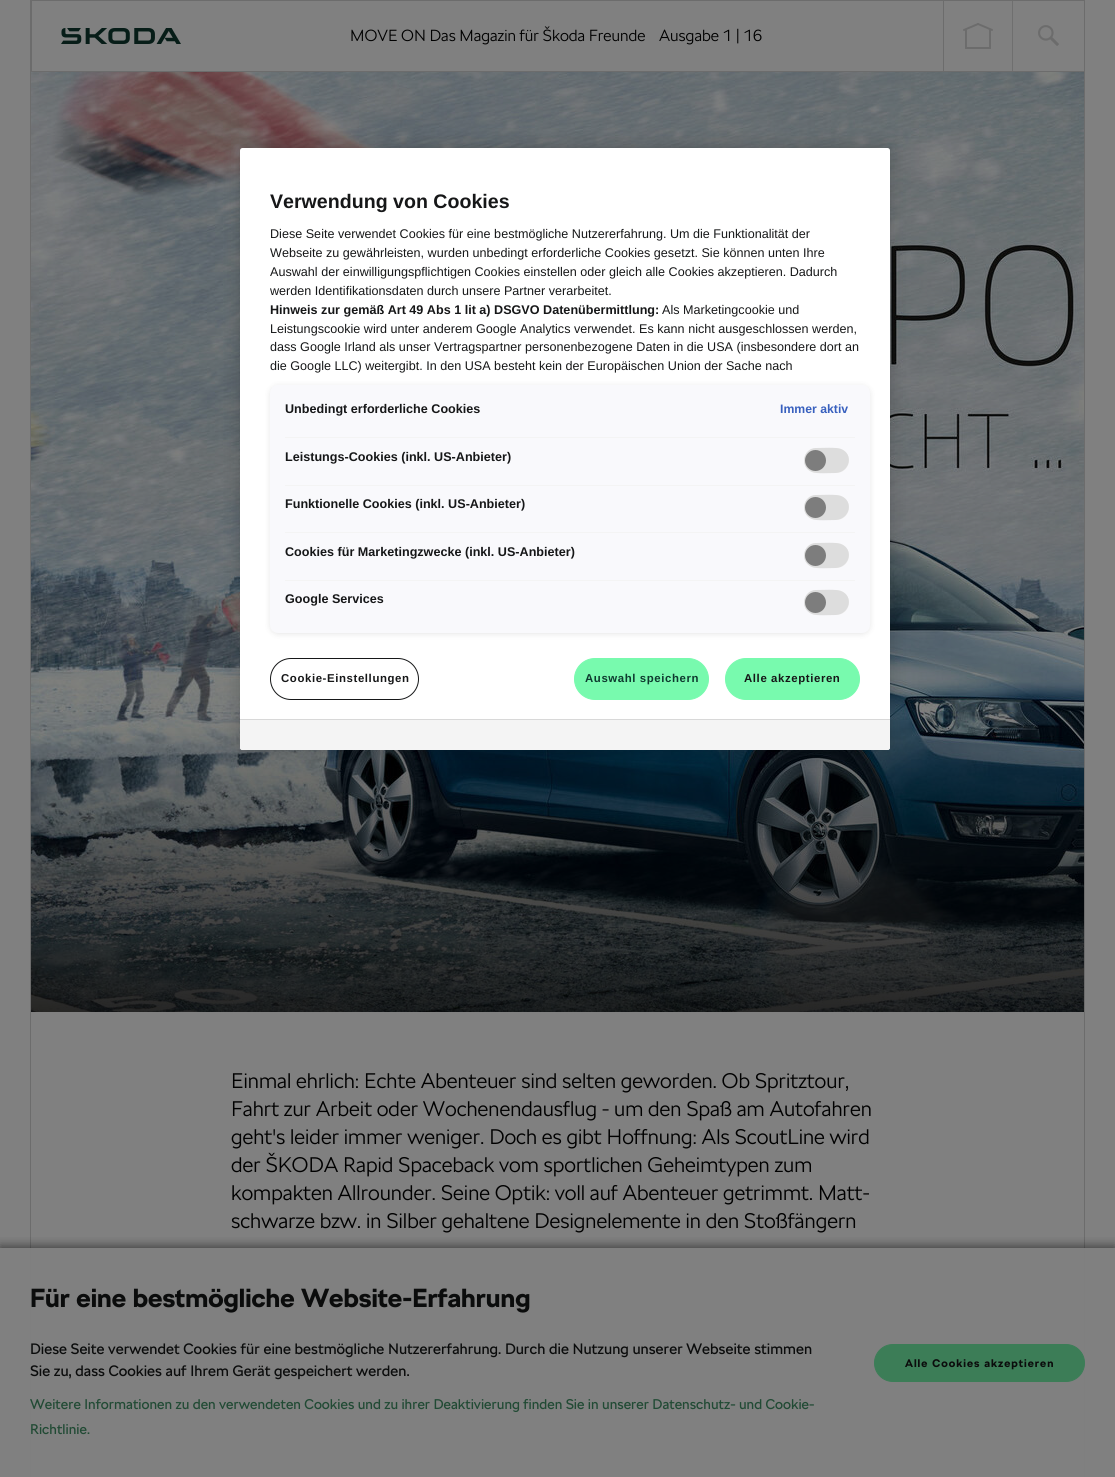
import math
import cairo

surface = cairo.ImageSurface(cairo.FORMAT_RGB24, 1115, 1477)
c = cairo.Context(surface)
options = cairo.FontOptions()
options.set_hint_metrics(cairo.HINT_METRICS_OFF)
options.set_hint_style(cairo.HINT_STYLE_NONE)
c.set_font_options(options)
c.set_miter_limit(4)
def C(code):
 c.set_source_rgb(*(v / 255 for v in bytes.fromhex(code[-6:])))
def F(family, size, italic, bold):
 c.select_font_face(family, cairo.FONT_SLANT_ITALIC if italic else cairo.FONT_SLANT_NORMAL, cairo.FONT_WEIGHT_BOLD if bold else cairo.FONT_WEIGHT_NORMAL)
 c.set_font_size(size)
def T(x, y, s):
 c.move_to(x, y)
 c.show_text(s)
def L(x, y, s, letter, word):
 c.move_to(x, y)
 for ch in s:
  c.show_text(ch)
  c.rel_move_to(letter + word * (ch == ' '), 0)
def R(x, y, w, h):
 c.rectangle(x, y, w, h)
 c.fill()
def Q(x, y, w, h, r):
 c.new_sub_path()
 for i, (u, v) in enumerate([(x + w - r, y + h - r), (x + r, y + h - r), (x + r, y + r), (x + w - r, y + r)]):
  c.arc(u, v, r, i * math.pi / 2, (i + 1) * math.pi / 2)
 c.close_path()
def S(x, y, w, h, r, blur, alpha):
 c.push_group_with_content(cairo.CONTENT_ALPHA)
 c.set_operator(cairo.OPERATOR_SOURCE)
 for i in range(15, -16, -2):
  e = blur * i / 6
  if min(w, h) + 2 * e > 0:
   c.set_source_rgba(0, 0, 0, alpha * math.erfc((i - 1) / 8.5) / 2)
   Q(x - e, y - e, w + 2 * e, h + 2 * e, max(0, min(r + e + blur * .6, min(w, h) / 2 + e)))
   c.fill()
 c.mask(c.pop_group())
def I(path, x, y, w, h):
 c.save()
 c.set_source_surface(cairo.ImageSurface.create_from_png(path), x, y)
 c.rectangle(x, y, w, h)
 c.fill()
 c.restore()
C('808080')
c.paint()
c.rectangle(30.5,.5,1054,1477)
C('6c6c6c')
c.set_line_width(1)
c.stroke()
R(31,71,1053,1)
R(31,1,1,71)
I('1.png',61,28,120,16)
F('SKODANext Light',16,0,0)
C('000000')
T(350,41,'MOVE ON Das Magazin für Škoda Freunde')
T(659,41,'Ausgabe 1 | 16')
I('2.png',963,23,30,26)
C('6f6f6f')
R(1012,1,1,70)
C('6c6c6c')
R(943,1,1,70)
I('3.png',1038,25,21,21)
I('4.png',31,72,1053,940)
F('SKODANext Light',21,0,0)
C('000000')
T(231,1088,'Einmal ehrlich: Echte Abenteuer sind selten geworden. Ob Spritztour,')
T(231,1116,'Fahrt zur Arbeit oder Wochenendausflug - um den Spaß am Autofahren')
T(231,1144,'geht\'s leider immer weniger. Doch es gibt Hoffnung: Als ScoutLine wird')
T(231,1172,'der ŠKODA Rapid Spaceback vom sportlichen Geheimtypen zum')
T(231,1200,'kompakten Allrounder. Seine Optik: voll auf Abenteuer getrimmt. Matt-')
T(231,1228,'schwarze bzw. in Silber gehaltene Designelemente in den Stoßfängern')
C('000000')
S(240,148,650,602,2.5,9,.2)
C('ffffff')
Q(240,148,650,602,2.5)
c.fill()
F('Liberation Sans',19.6,0,1)
C('161718')
T(270,208,'Verwendung von Cookies')
F('Liberation Sans',12.6,0,0)
T(270,238,'Diese Seite verwendet Cookies für eine bestmögliche Nutzererfahrung. Um die Funktionalität der')
T(270,257,'Webseite zu gewährleisten, wurden unbedingt erforderliche Cookies gesetzt. Sie können unten Ihre')
T(270,276,'Auswahl der einwilligungspflichtigen Cookies einstellen oder gleich alle Cookies akzeptieren. Dadurch')
T(270,295,'werden Identifikationsdaten durch unsere Partner verarbeitet.')
F('Liberation Sans',12.6,0,1)
T(270,314,'Hinweis zur gemäß Art 49 Abs 1 lit a) DSGVO Datenübermittlung:')
F('Liberation Sans',12.6,0,0)
T(662,314,'Als Marketingcookie und')
T(270,333,'Leistungscookie wird unter anderem Google Analytics verwendet. Es kann nicht ausgeschlossen werden,')
T(270,351,'dass Google Irland als unser Vertragspartner personenbezogene Daten in die USA (insbesondere dort an')
T(270,370,'die Google LLC) weitergibt. In den USA besteht kein der Europäischen Union der Sache nach')
C('000000')
S(270,386,600,248,8,3,.1)
C('f9f9fc')
Q(270,385,600,248,8)
c.fill()
C('f4f4f4')
R(285,437,570,1)
F('Liberation Sans',12.6,0,1)
C('161718')
T(285,413,'Unbedingt erforderliche Cookies')
F('Liberation Sans',12.25,0,1)
C('3860be')
T(780,413,'Immer aktiv')
C('f4f4f4')
R(285,485,570,1)
F('Liberation Sans',12.6,0,1)
C('161718')
T(285,461,'Leistungs-Cookies (inkl. US-Anbieter)')
C('f2f1f1')
Q(804,448,45,25,12.5)
c.fill()
C('dddddd')
c.new_path()
c.move_to(816,448)
c.curve_to(823,448,836,447,841,449)
c.curve_to(854,454,850,472,836,473)
c.curve_to(831,473,816,474,812,472)
c.curve_to(799,467,803,448,816,448)
c.close_path()
c.fill()
C('7d7d7d')
c.arc(815.5,460.5,10.5,0,2 * math.pi)
c.fill()
C('f4f4f4')
R(285,532,570,1)
C('161718')
T(285,508,'Funktionelle Cookies (inkl. US-Anbieter)')
C('f2f1f1')
Q(804,495,45,25,12.5)
c.fill()
C('dddddd')
c.new_path()
c.move_to(816,495)
c.curve_to(823,495,836,494,841,496)
c.curve_to(854,501,850,519,836,520)
c.curve_to(831,520,816,521,812,519)
c.curve_to(799,514,803,495,816,495)
c.close_path()
c.fill()
C('7d7d7d')
c.arc(815.5,507.5,10.5,0,2 * math.pi)
c.fill()
C('f4f4f4')
R(285,580,570,1)
C('161718')
T(285,556,'Cookies für Marketingzwecke (inkl. US-Anbieter)')
C('f2f1f1')
Q(804,543,45,25,12.5)
c.fill()
C('dddddd')
c.new_path()
c.move_to(816,543)
c.curve_to(823,543,836,542,841,544)
c.curve_to(854,549,850,567,836,568)
c.curve_to(831,568,816,569,812,567)
c.curve_to(799,562,803,543,816,543)
c.close_path()
c.fill()
C('7d7d7d')
c.arc(815.5,555.5,10.5,0,2 * math.pi)
c.fill()
C('161718')
T(285,603,'Google Services')
C('f2f1f1')
Q(804,590,45,25,12.5)
c.fill()
C('dddddd')
c.new_path()
c.move_to(816,590)
c.curve_to(823,590,836,589,841,591)
c.curve_to(854,596,850,614,836,615)
c.curve_to(831,615,816,616,812,614)
c.curve_to(799,609,803,590,816,590)
c.close_path()
c.fill()
C('7d7d7d')
c.arc(815.5,602.5,10.5,0,2 * math.pi)
c.fill()
Q(270.5,658.5,148,41,20.5)
C('161718')
c.stroke()
F('Liberation Sans',11.4,0,1)
L(281,682,'Cookie-Einstellungen',.6,0)
C('78faae')
Q(574.5,658.5,134,41,20.5)
c.fill_preserve()
c.stroke()
C('0e3a2f')
L(585,682,'Auswahl speichern',.6,0)
C('78faae')
Q(725.5,658.5,134,41,20.5)
c.fill_preserve()
c.stroke()
C('161718')
L(744,682,'Alle akzeptieren',.6,0)
C('f4f4f4')
c.new_path()
c.move_to(240,719)
c.line_to(890,719)
c.line_to(890,747.5)
c.curve_to(890,749,889,750,887.5,750)
c.line_to(242.5,750)
c.curve_to(241,750,240,749,240,747.5)
c.close_path()
c.fill()
C('d8d8d8')
R(240,719,650,1)
c.save()
c.rectangle(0,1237,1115,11)
c.clip()
C('000000')
S(0,1246,1115,229,0,5,.5)
c.restore()
c.set_source_rgba(0.502,0.502,0.502,0.95)
R(30,1248,1055,229)
F('SKODANext',26,0,1)
C('0b0c0c')
T(30,1307,'Für eine bestmögliche Website-Erfahrung')
F('SKODANext',15,0,0)
T(30,1354,'Diese Seite verwendet Cookies für eine bestmögliche Nutzererfahrung. Durch die Nutzung unserer Webseite stimmen')
T(30,1376,'Sie zu, dass Cookies auf Ihrem Gerät gespeichert werden.')
C('3c7d57')
Q(874.5,1344.5,210,37,18.5)
c.fill_preserve()
c.stroke()
F('SKODANext',11,0,1)
C('0b0c0c')
L(905,1367,'Alle Cookies akzeptieren',1,0)
F('SKODANext',14,0,0)
C('214a34')
T(30,1409,'Weitere Informationen zu den verwendeten Cookies und zu ihrer Deaktivierung finden Sie in unserer Datenschutz- und Cookie-')
T(30,1434,'Richtlinie.')
surface.write_to_png('o.png')
